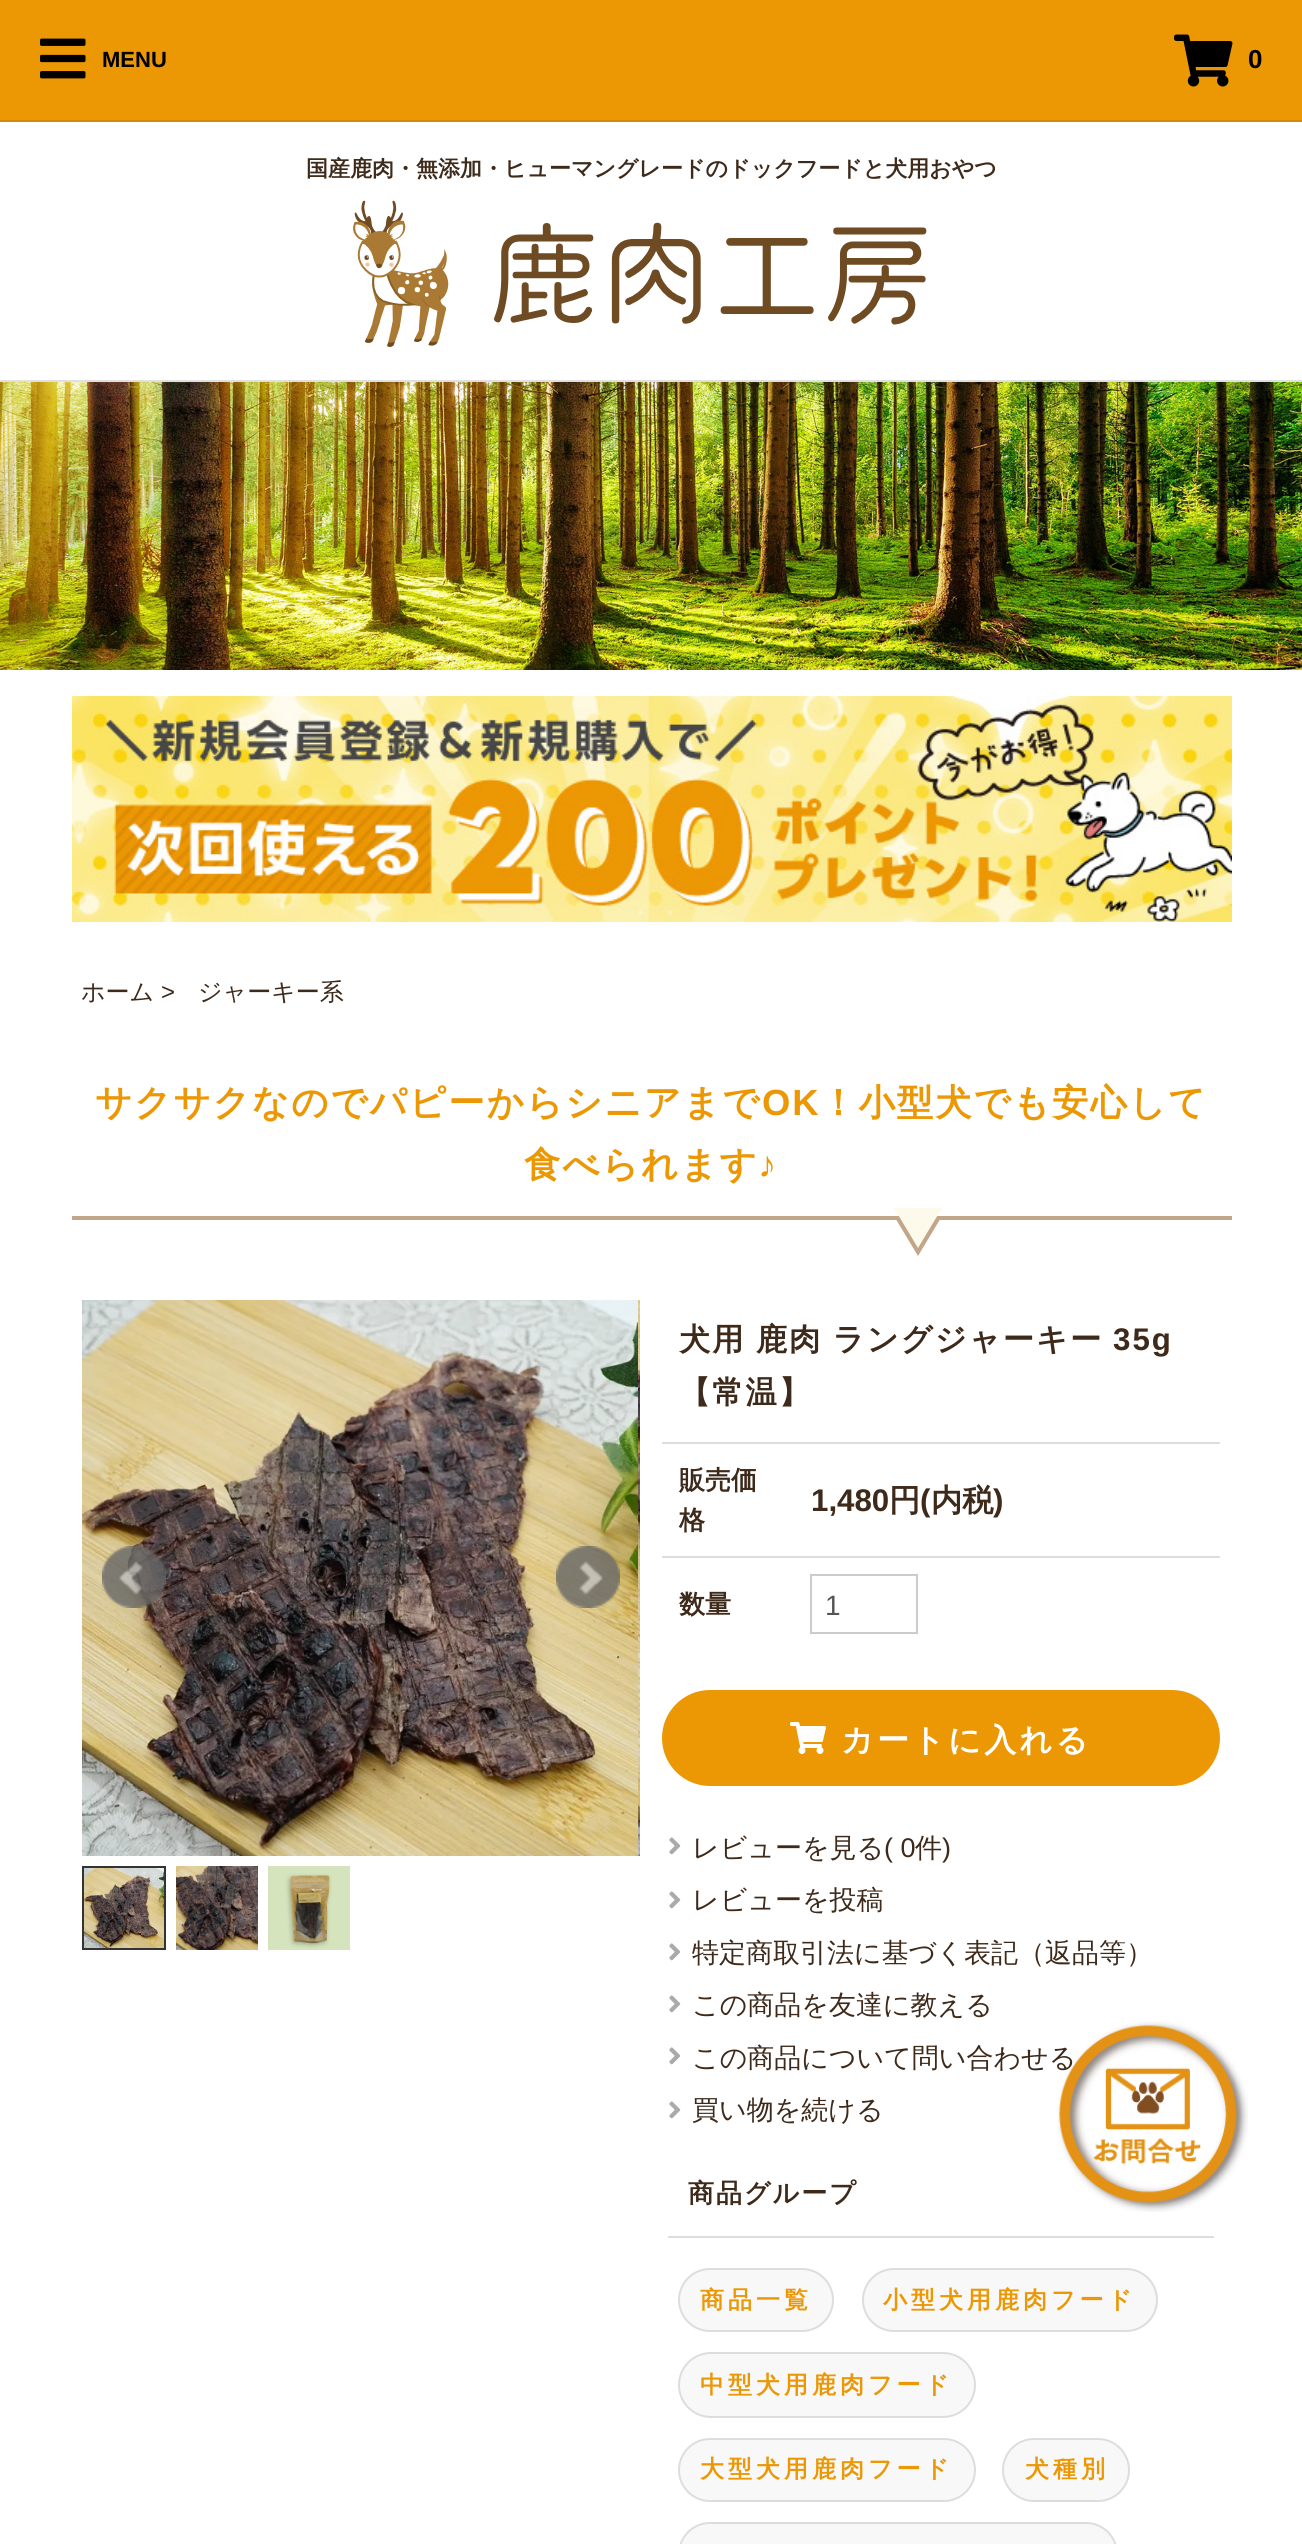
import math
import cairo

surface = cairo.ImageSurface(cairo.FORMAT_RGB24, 1302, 2544)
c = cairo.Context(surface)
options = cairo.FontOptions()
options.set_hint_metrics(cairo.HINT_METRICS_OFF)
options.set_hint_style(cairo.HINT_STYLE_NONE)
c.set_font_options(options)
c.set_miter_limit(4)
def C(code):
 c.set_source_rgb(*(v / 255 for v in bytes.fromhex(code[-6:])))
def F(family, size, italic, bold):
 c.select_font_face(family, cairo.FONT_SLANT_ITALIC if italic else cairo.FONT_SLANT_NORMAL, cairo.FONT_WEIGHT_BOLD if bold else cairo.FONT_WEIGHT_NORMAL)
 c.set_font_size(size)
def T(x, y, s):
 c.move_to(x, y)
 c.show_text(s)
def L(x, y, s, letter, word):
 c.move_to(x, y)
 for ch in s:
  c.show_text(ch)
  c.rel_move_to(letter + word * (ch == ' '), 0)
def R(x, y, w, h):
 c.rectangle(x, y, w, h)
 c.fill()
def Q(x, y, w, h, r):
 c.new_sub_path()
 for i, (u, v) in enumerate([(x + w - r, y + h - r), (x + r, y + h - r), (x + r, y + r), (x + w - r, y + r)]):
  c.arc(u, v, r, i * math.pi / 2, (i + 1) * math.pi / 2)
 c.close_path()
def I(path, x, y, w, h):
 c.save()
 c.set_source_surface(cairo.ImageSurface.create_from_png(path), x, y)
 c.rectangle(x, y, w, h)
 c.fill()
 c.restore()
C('ffffff')
c.paint()
C('ec9704')
R(0,0,1302,120)
C('d48804')
R(0,120,1302,2)
I('1.png',40,38,46,41)
F('Liberation Sans',22,0,1)
C('000000')
T(102,67,'MENU')
I('2.png',1174,34,59,53)
F('Liberation Sans',26,0,1)
T(1248,68,'0')
C('e0e0e0')
R(0,380,1302,2)
F('WenQuanYi Zen Hei',22,0,1)
C('3e2a1a')
T(306,176,'国産鹿肉・無添加・ヒューマングレードのドックフードと犬用おやつ')
I('3.png',353,200,574,147)
I('4.png',0,382,1302,288)
I('5.png',72,696,1160,226)
F('WenQuanYi Zen Hei Medium',24,0,0)
T(81,1000,'ホーム')
F('Liberation Sans',24,0,0)
T(161,1000,'>')
F('WenQuanYi Zen Hei Medium',24,0,0)
T(198,1000,'ジャーキー系')
C('c1a689')
R(72,1216,1160,4)
F('WenQuanYi Zen Hei',36.4,0,1)
C('ec9704')
L(95,1115,'サクサクなのでパピーからシニアまで',2,0)
F('Liberation Sans',36.4,0,1)
L(762,1115,'OK',2,0)
F('WenQuanYi Zen Hei',36.4,0,1)
L(820,1115,'！小型犬でも安心して',2,0)
L(524,1177,'食べられます',2,0)
F('Liberation Sans',36.4,0,1)
L(758,1177,'♪',2,0)
C('c1a689')
c.new_path()
c.move_to(894,1216)
c.line_to(942,1216)
c.line_to(918,1256)
c.close_path()
c.fill()
C('fdf9eb')
c.new_path()
c.move_to(894,1208)
c.line_to(942,1208)
c.line_to(918,1248)
c.close_path()
c.fill()
I('6.png',82,1300,556,556)
I('7.png',638,1300,2,556)
I('8.png',102,1546,64,62)
I('9.png',556,1546,64,62)
c.rectangle(83,1867,82,82)
C('333333')
c.stroke()
I('10.png',84,1868,80,80)
I('11.png',176,1866,82,84)
I('12.png',268,1866,82,84)
F('WenQuanYi Zen Hei',31.25,0,1)
C('3e2a1a')
L(679,1350,'犬用 鹿肉 ラングジャーキー',2,-1)
F('Liberation Sans',31.25,0,1)
L(1113,1350,'35g',2,0)
F('WenQuanYi Zen Hei',31.25,0,1)
L(679,1403,'【常温】',2,0)
F('WenQuanYi Zen Hei',26,0,1)
T(679,1489,'販売価')
T(679,1529,'格')
C('dddddd')
R(662,1442,558,2)
F('Liberation Sans',31.25,0,1)
C('3e2a1a')
T(811,1511,'1,480')
F('WenQuanYi Zen Hei',31.25,0,1)
T(889,1511,'円')
F('Liberation Sans',31.25,0,1)
T(920,1511,'(')
F('WenQuanYi Zen Hei',31.25,0,1)
T(931,1511,'内税')
F('Liberation Sans',31.25,0,1)
T(993,1511,')')
F('WenQuanYi Zen Hei',26,0,1)
T(679,1613,'数量')
C('dddddd')
R(662,1556,558,2)
c.rectangle(811,1575,106,58)
C('cccccc')
c.stroke()
F('Liberation Sans',28,0,0)
C('555555')
T(825,1615,'1')
C('ec9704')
Q(662,1690,558,96,48)
c.fill()
I('13.png',790,1722,36,32)
F('WenQuanYi Zen Hei',32,0,1)
C('ffffff')
L(841,1751,'カートに入れる',3.25,0)
I('14.png',669,1837,12,18)
F('WenQuanYi Zen Hei Medium',27,0,0)
C('3e2a1a')
T(692,1857,'レビューを見る')
F('Liberation Sans',27,0,0)
T(884,1857,'( 0')
F('WenQuanYi Zen Hei Medium',27,0,0)
T(915,1857,'件')
F('Liberation Sans',27,0,0)
T(942,1857,')')
I('14.png',669,1891,12,18)
F('WenQuanYi Zen Hei Medium',27,0,0)
T(692,1909,'レビューを投稿')
I('14.png',669,1943,12,18)
T(692,1962,'特定商取引法に基づく表記（返品等）')
I('14.png',669,1995,12,18)
T(692,2014,'この商品を友達に教える')
I('14.png',669,2047,12,18)
T(692,2067,'この商品について問い合わせる')
I('14.png',669,2101,12,18)
T(692,2119,'買い物を続ける')
C('dddddd')
R(668,2236,546,2)
F('WenQuanYi Zen Hei',26,0,1)
C('3e2a1a')
L(688,2202,'商品グループ',2,0)
C('f8f8f8')
Q(679,2269,154,62,31)
c.fill_preserve()
C('dddddd')
c.stroke()
F('WenQuanYi Zen Hei',24,0,1)
C('ec9704')
L(700,2308,'商品一覧',4,0)
C('f8f8f8')
Q(863,2269,294,62,31)
c.fill_preserve()
C('dddddd')
c.stroke()
C('ec9704')
L(883,2308,'小型犬用鹿肉フード',4,0)
C('f8f8f8')
Q(679,2353,296,64,32)
c.fill_preserve()
C('dddddd')
c.stroke()
C('ec9704')
L(700,2393,'中型犬用鹿肉フード',4,0)
C('f8f8f8')
Q(679,2439,296,62,31)
c.fill_preserve()
C('dddddd')
c.stroke()
C('ec9704')
L(700,2477,'大型犬用鹿肉フード',4,0)
C('f8f8f8')
Q(1003,2439,126,62,31)
c.fill_preserve()
C('dddddd')
c.stroke()
C('ec9704')
L(1025,2477,'犬種別',4,0)
C('f8f8f8')
Q(679,2523,438,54,31)
c.fill_preserve()
C('dddddd')
c.stroke()
I('15.png',1057,2021,191,191)
surface.write_to_png('o.png')
